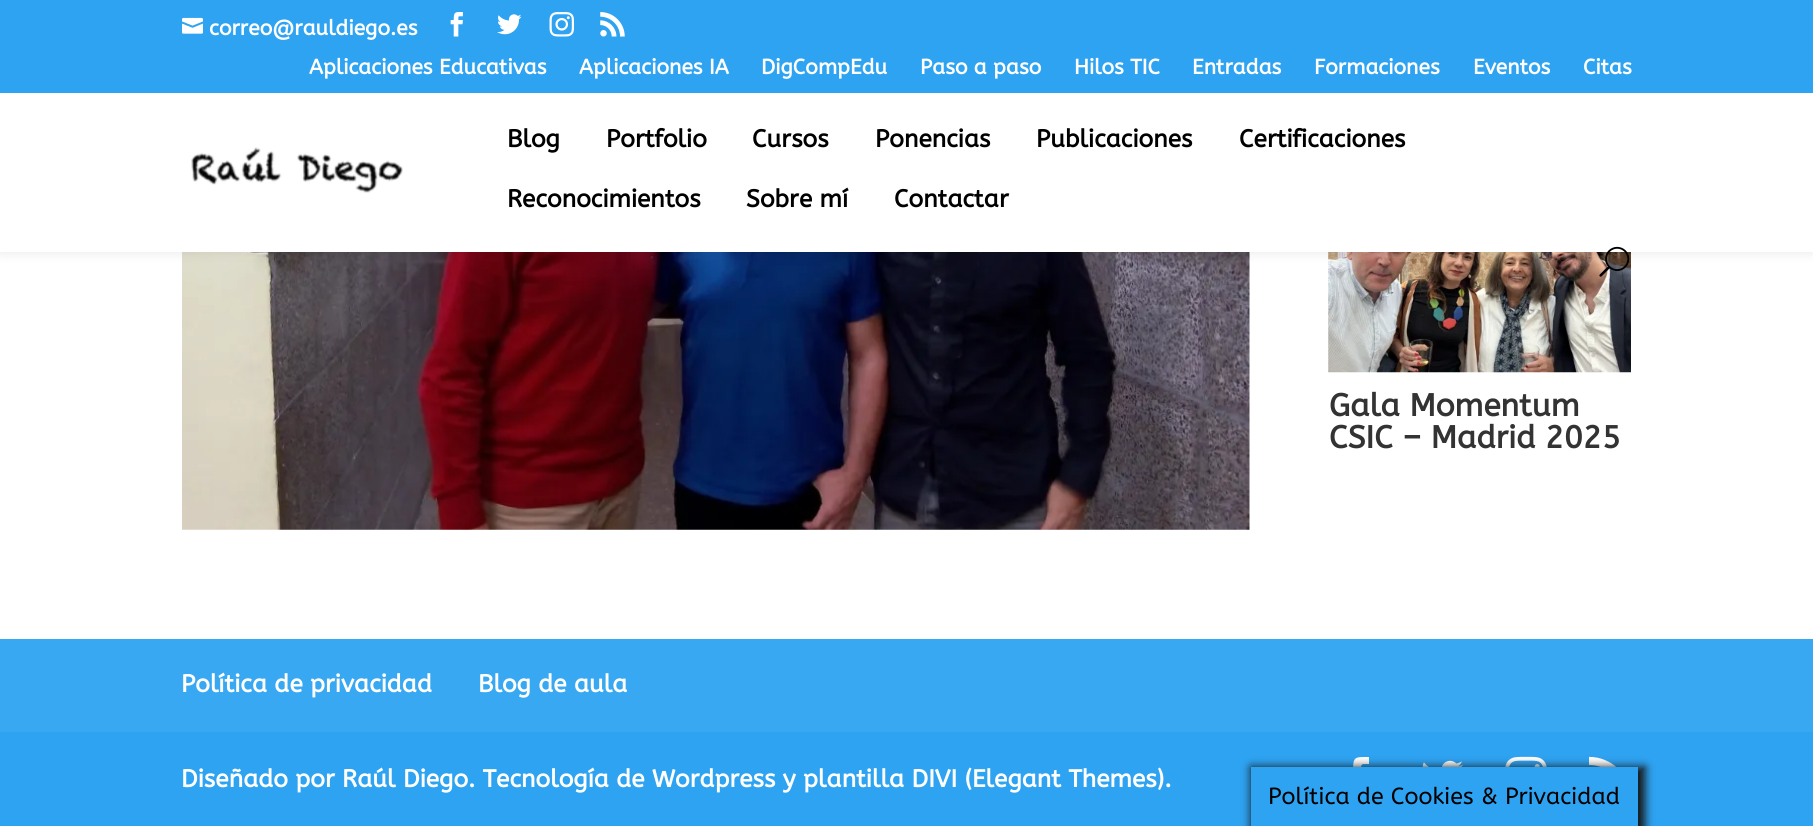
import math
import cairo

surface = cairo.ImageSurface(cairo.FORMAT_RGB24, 1813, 826)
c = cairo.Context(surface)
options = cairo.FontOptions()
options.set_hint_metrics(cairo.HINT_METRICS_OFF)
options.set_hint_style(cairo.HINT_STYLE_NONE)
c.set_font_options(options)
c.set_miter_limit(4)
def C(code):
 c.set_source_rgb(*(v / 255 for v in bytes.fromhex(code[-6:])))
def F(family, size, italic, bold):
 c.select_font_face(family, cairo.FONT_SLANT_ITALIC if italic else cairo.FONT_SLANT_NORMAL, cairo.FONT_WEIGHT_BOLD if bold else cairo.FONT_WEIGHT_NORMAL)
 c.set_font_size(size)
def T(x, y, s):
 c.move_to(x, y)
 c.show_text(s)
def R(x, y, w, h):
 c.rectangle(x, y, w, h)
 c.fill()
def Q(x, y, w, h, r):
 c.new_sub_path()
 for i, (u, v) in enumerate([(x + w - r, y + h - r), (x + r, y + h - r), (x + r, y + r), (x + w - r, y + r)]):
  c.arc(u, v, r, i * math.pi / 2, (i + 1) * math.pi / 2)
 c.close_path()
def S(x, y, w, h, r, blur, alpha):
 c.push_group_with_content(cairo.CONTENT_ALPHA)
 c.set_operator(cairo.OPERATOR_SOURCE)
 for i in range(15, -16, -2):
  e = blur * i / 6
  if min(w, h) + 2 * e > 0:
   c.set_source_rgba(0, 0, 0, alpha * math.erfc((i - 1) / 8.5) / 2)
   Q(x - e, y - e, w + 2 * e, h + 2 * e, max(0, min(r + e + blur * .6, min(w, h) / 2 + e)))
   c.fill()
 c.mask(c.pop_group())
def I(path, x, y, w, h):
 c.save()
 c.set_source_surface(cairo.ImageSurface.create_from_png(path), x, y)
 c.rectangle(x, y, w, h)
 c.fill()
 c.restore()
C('ffffff')
c.paint()
I('8.png',182,252,1068,278)
I('9.png',1328,252,303,121)
C('000000')
S(0,93,1813,159,0,6,.1)
C('2ea3f2')
R(0,0,1813,93)
I('1.png',182,17,21,17)
F('ABeeZee',21,0,1)
C('ffffff')
T(209,35,'correo@rauldiego.es')
I('2.png',450,12,13,25)
I('3.png',497,14,25,21)
I('4.png',549,12,25,25)
I('5.png',600,12,25,25)
T(309,74,'Aplicaciones Educativas')
T(579,74,'Aplicaciones IA')
T(761,74,'DigCompEdu')
T(920,74,'Paso a paso')
T(1074,74,'Hilos TIC')
T(1192,74,'Entradas')
T(1314,74,'Formaciones')
T(1473,74,'Eventos')
T(1583,74,'Citas')
R(0,93,1813,159)
I('6.png',191,147,212,46)
F('ABeeZee',24.5,0,1)
C('000000')
T(507,147,'Blog')
T(606,147,'Portfolio')
T(752,147,'Cursos')
T(875,147,'Ponencias')
T(1036,147,'Publicaciones')
T(1239,147,'Certificaciones')
T(507,207,'Reconocimientos')
T(746,207,'Sobre mí')
T(894,207,'Contactar')
I('7.png',1599,246,31,31)
F('ABeeZee',31.5,0,1)
C('333333')
T(1329,416,'Gala Momentum')
T(1329,448,'CSIC – Madrid 2025')
C('2ea3f2')
R(0,732,1813,94)
C('38a8f2')
R(0,639,1813,93)
F('ABeeZee',24.5,0,1)
C('ffffff')
T(181,692,'Política de privacidad')
T(478,692,'Blog de aula')
T(181,787,'Diseñado por Raúl Diego. Tecnología de Wordpress y plantilla DIVI (Elegant Themes).')
c.new_path()
c.move_to(1353,799)
c.line_to(1361,799)
c.line_to(1361,778)
c.line_to(1368,778)
c.line_to(1369,771)
c.line_to(1361,771)
c.curve_to(1361,763,1361,764,1369,764)
c.line_to(1369,757)
c.curve_to(1355,757,1353,756,1353,771)
c.line_to(1348,771)
c.line_to(1348,778)
c.line_to(1353,778)
c.close_path()
c.fill()
I('10.png',1422,760,41,7)
I('11.png',1505,756,42,11)
I('12.png',1589,756,28,11)
C('161616')
S(1251,767,394,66,0,4.5,1)
C('2ea3f2')
R(1251,767,387,59)
F('ABeeZee',23.3,0,0)
C('000000')
T(1268,804,'Política de Cookies & Privacidad')
surface.write_to_png('o.png')
